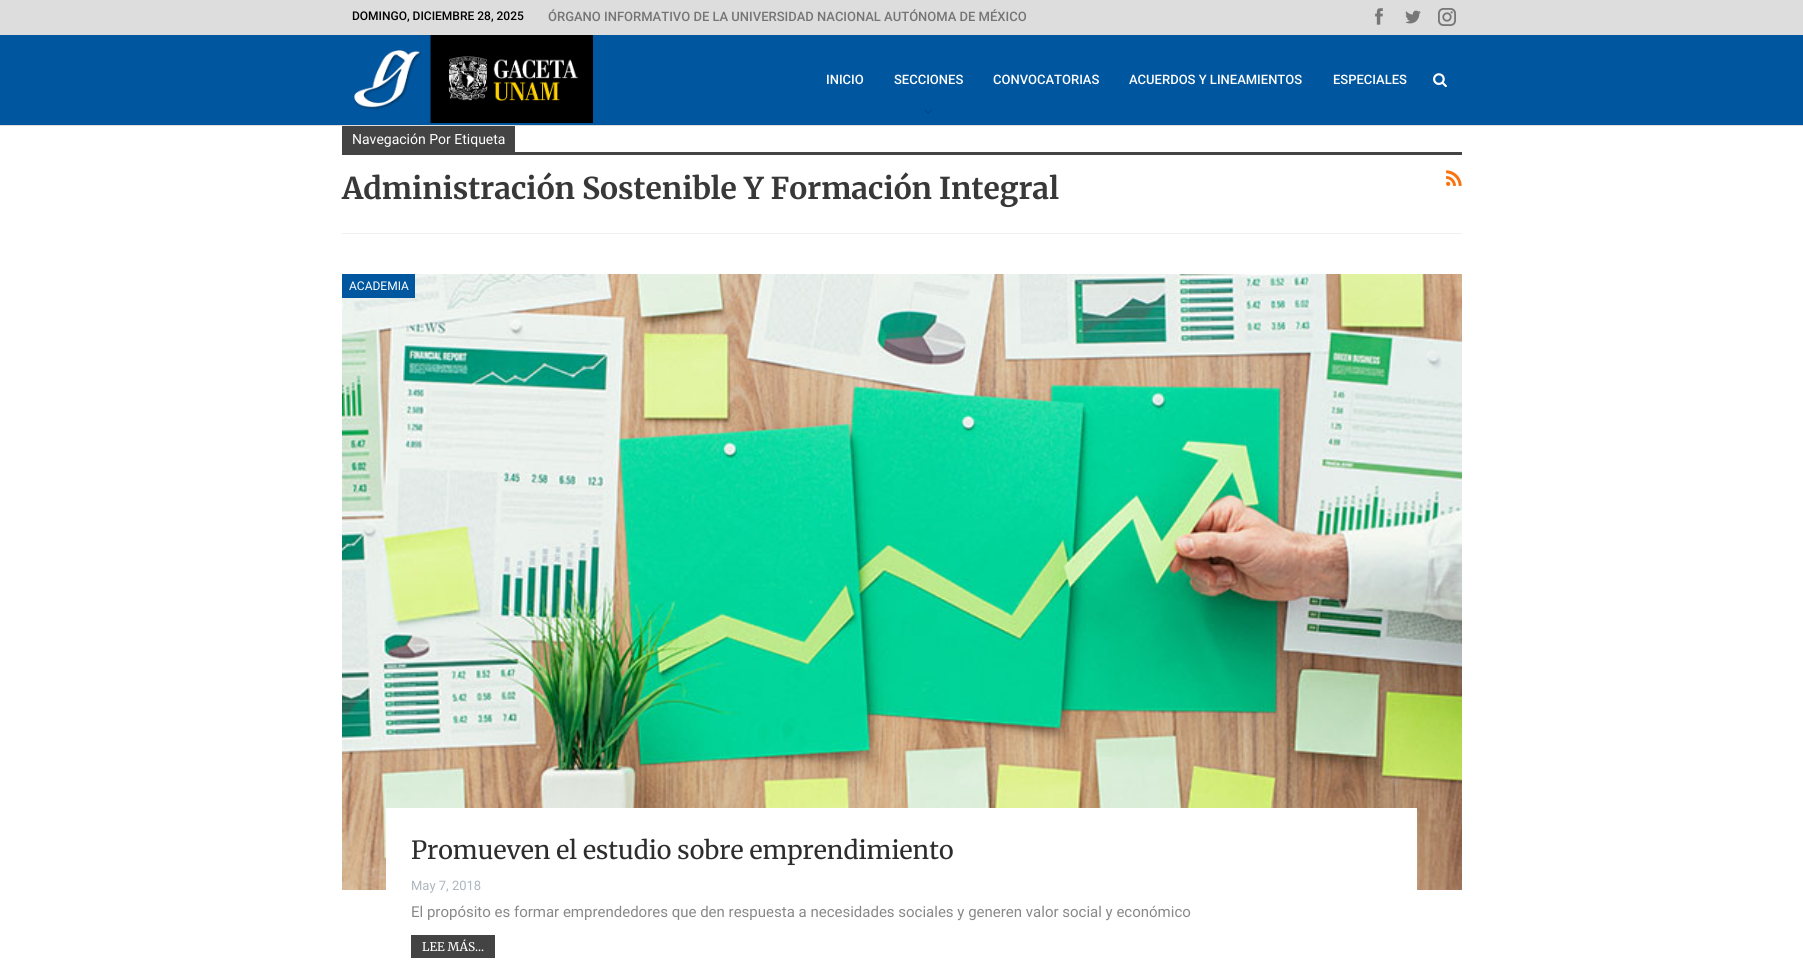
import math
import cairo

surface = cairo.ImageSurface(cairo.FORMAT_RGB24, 1803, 979)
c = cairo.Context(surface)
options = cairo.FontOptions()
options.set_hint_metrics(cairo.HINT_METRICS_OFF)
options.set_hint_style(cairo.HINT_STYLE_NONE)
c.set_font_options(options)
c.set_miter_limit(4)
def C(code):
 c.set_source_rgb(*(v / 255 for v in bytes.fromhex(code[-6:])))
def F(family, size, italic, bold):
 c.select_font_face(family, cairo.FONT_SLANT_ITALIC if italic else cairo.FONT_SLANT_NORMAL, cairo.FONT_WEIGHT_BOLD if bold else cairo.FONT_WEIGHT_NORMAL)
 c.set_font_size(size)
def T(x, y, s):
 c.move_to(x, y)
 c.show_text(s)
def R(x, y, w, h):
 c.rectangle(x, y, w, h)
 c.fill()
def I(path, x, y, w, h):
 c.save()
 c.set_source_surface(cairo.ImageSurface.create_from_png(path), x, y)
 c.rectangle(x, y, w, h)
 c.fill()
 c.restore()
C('ffffff')
c.paint()
C('00569f')
R(0,35,1803,90)
C('dedede')
R(0,125,1803,1)
C('dddddd')
R(0,0,1803,35)
F('Roboto Medium',12,0,0)
C('000000')
T(352,20,'DOMINGO, DICIEMBRE 28, 2025')
F('Roboto Medium',13,0,0)
C('757575')
T(548,21,'ÓRGANO INFORMATIVO DE LA UNIVERSIDAD NACIONAL AUTÓNOMA DE MÉXICO')
I('1.png',1375,8,8,17)
I('2.png',1405,10,16,14)
I('3.png',1438,8,18,18)
I('4.png',354,35,239,88)
C('ffffff')
T(826,84,'INICIO')
T(894,84,'SECCIONES')
I('5.png',924,109,8,5)
T(993,84,'CONVOCATORIAS')
T(1129,84,'ACUERDOS Y LINEAMIENTOS')
T(1333,84,'ESPECIALES')
I('6.png',1433,73,14,15)
C('f0f0f0')
R(342,233,1120,1)
C('444444')
R(342,126,173,26)
F('Roboto',14,0,0)
C('ffffff')
T(352,144,'Navegación Por Etiqueta')
C('444444')
R(342,152,1120,3)
F('Merriweather',30,0,1)
C('383838')
T(342,199,'Administración Sostenible Y Formación Integral')
I('7.png',1446,170,16,16)
I('8.png',342,274,1120,616)
C('00569f')
R(342,274,73,24)
F('Roboto',12,0,0)
C('ffffff')
T(349,290,'ACADEMIA')
R(386,808,1031,82)
F('Merriweather',25,0,0)
C('2d2d2d')
T(411,859,'Promueven el estudio sobre emprendimiento')
F('Roboto',13,0,0)
C('adb5bd')
T(411,890,'May 7, 2018')
F('Roboto',15,0,0)
C('888888')
T(411,917,'El propósito es formar emprendedores que den respuesta a necesidades sociales y generen valor social y económico')
C('434343')
R(411,935,84,23)
F('Merriweather',12,0,0)
C('ffffff')
T(422,951,'LEE MÁS...')
surface.write_to_png('o.png')
